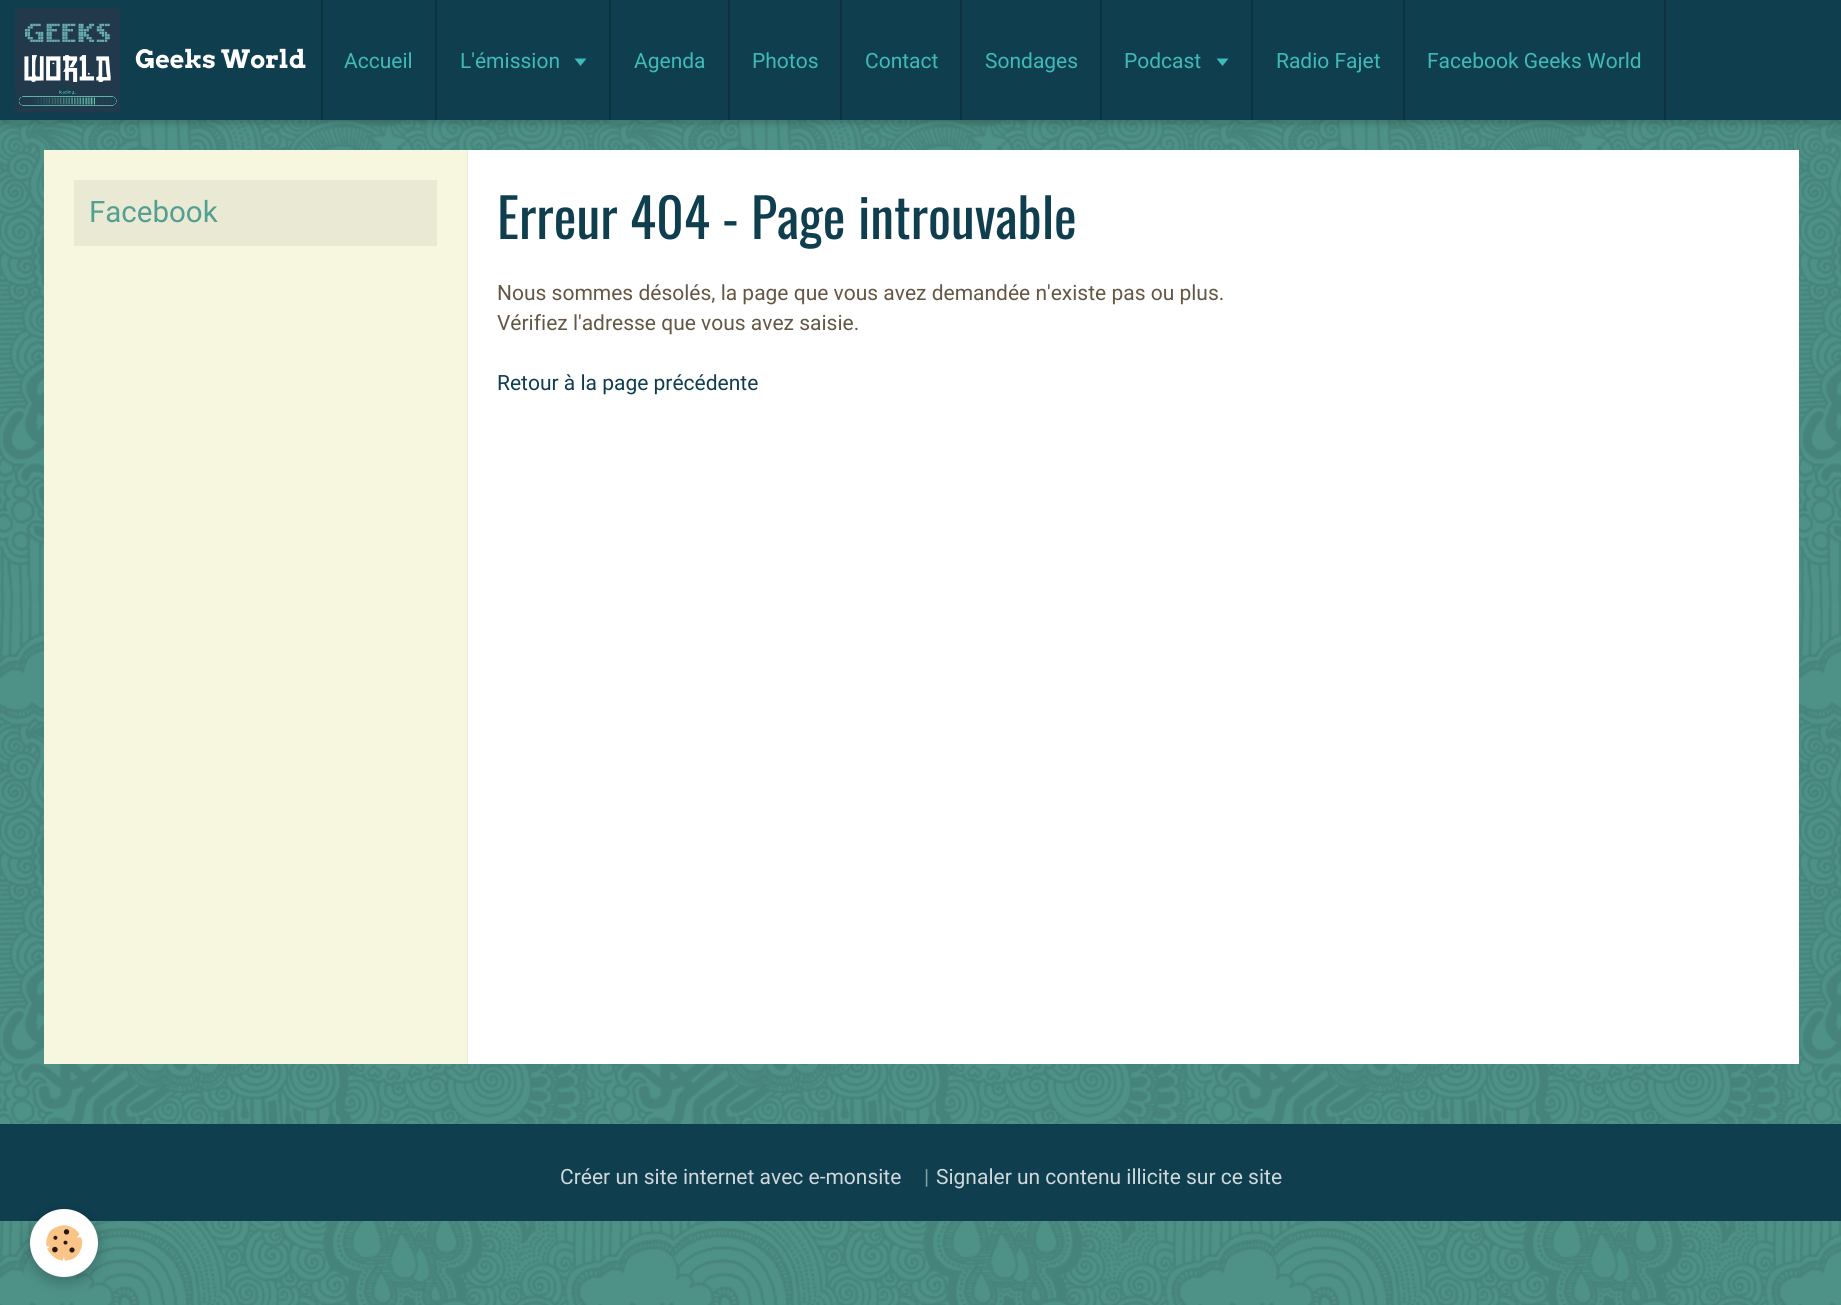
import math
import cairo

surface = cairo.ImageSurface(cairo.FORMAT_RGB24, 1841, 1305)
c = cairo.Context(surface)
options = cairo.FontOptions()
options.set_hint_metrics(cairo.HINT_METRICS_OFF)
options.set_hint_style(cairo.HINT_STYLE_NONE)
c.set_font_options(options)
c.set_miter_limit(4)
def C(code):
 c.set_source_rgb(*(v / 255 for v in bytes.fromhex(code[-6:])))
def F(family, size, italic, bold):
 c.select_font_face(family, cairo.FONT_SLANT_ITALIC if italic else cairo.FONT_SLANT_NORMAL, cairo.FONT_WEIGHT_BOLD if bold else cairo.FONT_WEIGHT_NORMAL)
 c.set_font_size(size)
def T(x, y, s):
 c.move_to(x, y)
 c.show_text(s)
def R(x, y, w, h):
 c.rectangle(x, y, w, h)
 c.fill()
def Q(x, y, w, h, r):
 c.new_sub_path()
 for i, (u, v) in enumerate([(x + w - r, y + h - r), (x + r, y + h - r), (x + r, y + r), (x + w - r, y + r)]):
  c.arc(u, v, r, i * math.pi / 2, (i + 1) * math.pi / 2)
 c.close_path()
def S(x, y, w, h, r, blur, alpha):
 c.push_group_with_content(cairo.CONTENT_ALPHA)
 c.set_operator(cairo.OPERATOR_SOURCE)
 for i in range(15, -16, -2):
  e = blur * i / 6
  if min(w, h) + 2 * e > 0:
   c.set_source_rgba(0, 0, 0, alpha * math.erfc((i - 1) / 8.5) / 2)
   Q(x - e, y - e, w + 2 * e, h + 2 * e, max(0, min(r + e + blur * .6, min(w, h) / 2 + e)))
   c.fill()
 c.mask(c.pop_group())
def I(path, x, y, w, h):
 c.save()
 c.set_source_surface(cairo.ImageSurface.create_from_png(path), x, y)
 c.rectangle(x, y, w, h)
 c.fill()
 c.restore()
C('4e9288')
c.paint()
I('1.png',0,120,1841,1185)
C('000000')
S(0,3,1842,120,0,4,.2)
C('0f3e4f')
R(0,0,1841,120)
I('2.png',15,7,105,106)
F('Arvo',25.25,0,1)
C('ffffff')
T(135,68,'Geeks World')
C('0c323f')
R(435,0,2,120)
R(321,0,2,120)
F('Roboto',21,0,0)
C('3fbbb7')
T(344,68,'Accueil')
C('0c323f')
R(609,0,2,120)
C('3fbbb7')
T(460,68,'L\'émission')
c.new_path()
c.move_to(574.5,58.5)
c.line_to(586.5,58.5)
c.line_to(580.5,66)
c.close_path()
c.fill()
C('0c323f')
R(728,0,2,120)
C('3fbbb7')
T(634,68,'Agenda')
C('0c323f')
R(840,0,2,120)
C('3fbbb7')
T(752,68,'Photos')
C('0c323f')
R(960,0,2,120)
C('3fbbb7')
T(865,68,'Contact')
C('0c323f')
R(1100,0,2,120)
C('3fbbb7')
T(985,68,'Sondages')
C('0c323f')
R(1251,0,2,120)
C('3fbbb7')
T(1124,68,'Podcast')
c.new_path()
c.move_to(1216.5,58.5)
c.line_to(1228.5,58.5)
c.line_to(1222.5,66)
c.close_path()
c.fill()
C('0c323f')
R(1403,0,2,120)
C('3fbbb7')
T(1276,68,'Radio Fajet')
C('0c323f')
R(1664,0,2,120)
C('3fbbb7')
T(1427,68,'Facebook Geeks World')
C('f7f6de')
R(44,150,423,914)
C('eae9d3')
R(467,150,1,914)
R(74,180,363,66)
F('Roboto',29.5,0,0)
C('529f93')
T(89,222,'Facebook')
C('ffffff')
R(468,150,1331,914)
F('Oswald',54,0,0)
C('0f3e4f')
T(497,239,'Erreur 404 - Page introuvable')
F('Roboto',21,0,0)
C('645744')
T(497,300,'Nous sommes désolés, la page que vous avez demandée n\'existe pas ou plus.')
T(497,330,'Vérifiez l\'adresse que vous avez saisie.')
C('0f3e4f')
T(497,390,'Retour à la page précédente')
R(0,1124,1841,97)
C('cfd8dc')
T(560,1184,'Créer un site internet avec e-monsite')
C('879fa7')
T(924,1184,'|')
C('cfd8dc')
T(936,1184,'Signaler un contenu illicite sur ce site')
C('000000')
S(30,1214,68,67,33.5,7.5,.24)
C('ffffff')
c.arc(64,1243,34,0,2 * math.pi)
c.fill()
I('3.png',46,1225,37,36)
surface.write_to_png('o.png')
